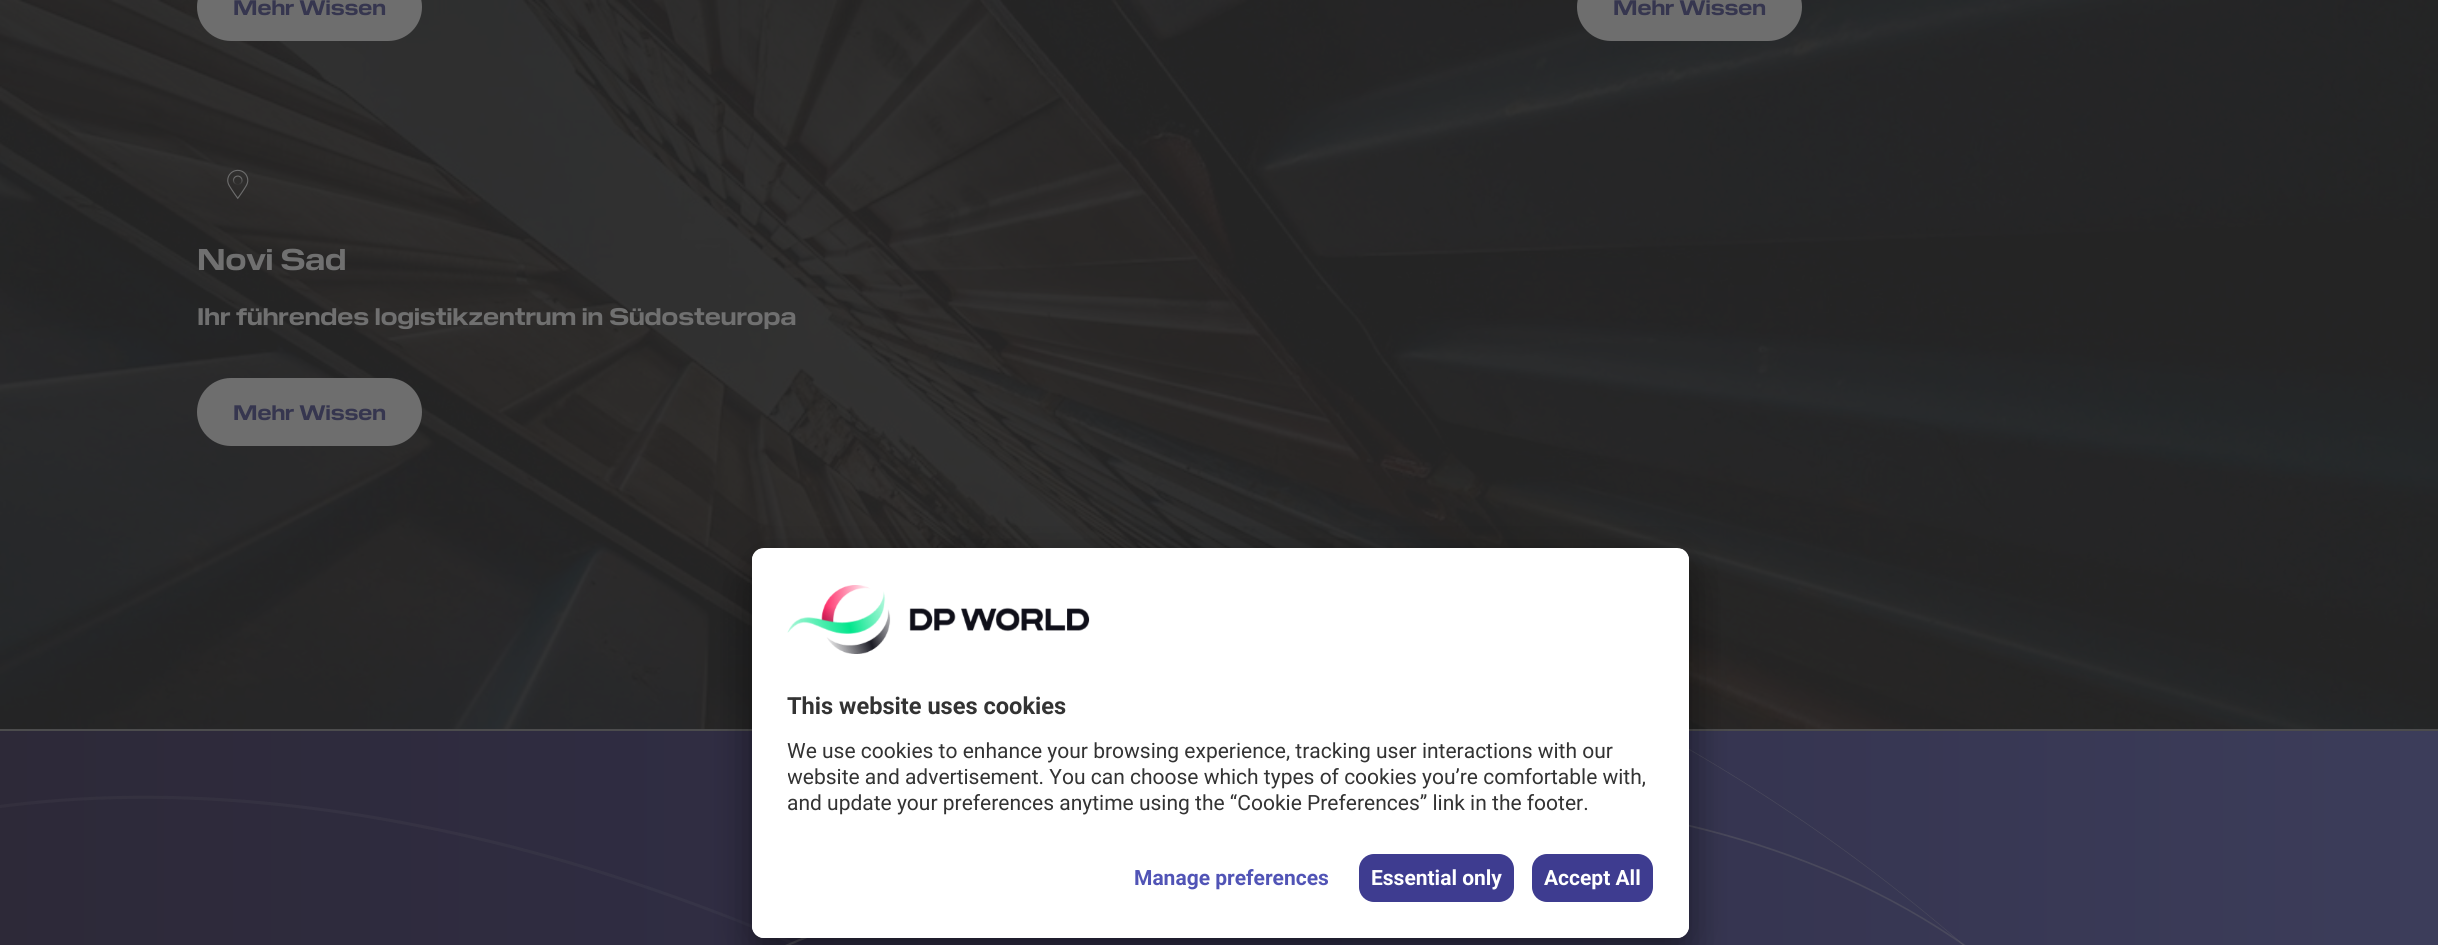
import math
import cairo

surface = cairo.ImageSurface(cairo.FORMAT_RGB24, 2438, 945)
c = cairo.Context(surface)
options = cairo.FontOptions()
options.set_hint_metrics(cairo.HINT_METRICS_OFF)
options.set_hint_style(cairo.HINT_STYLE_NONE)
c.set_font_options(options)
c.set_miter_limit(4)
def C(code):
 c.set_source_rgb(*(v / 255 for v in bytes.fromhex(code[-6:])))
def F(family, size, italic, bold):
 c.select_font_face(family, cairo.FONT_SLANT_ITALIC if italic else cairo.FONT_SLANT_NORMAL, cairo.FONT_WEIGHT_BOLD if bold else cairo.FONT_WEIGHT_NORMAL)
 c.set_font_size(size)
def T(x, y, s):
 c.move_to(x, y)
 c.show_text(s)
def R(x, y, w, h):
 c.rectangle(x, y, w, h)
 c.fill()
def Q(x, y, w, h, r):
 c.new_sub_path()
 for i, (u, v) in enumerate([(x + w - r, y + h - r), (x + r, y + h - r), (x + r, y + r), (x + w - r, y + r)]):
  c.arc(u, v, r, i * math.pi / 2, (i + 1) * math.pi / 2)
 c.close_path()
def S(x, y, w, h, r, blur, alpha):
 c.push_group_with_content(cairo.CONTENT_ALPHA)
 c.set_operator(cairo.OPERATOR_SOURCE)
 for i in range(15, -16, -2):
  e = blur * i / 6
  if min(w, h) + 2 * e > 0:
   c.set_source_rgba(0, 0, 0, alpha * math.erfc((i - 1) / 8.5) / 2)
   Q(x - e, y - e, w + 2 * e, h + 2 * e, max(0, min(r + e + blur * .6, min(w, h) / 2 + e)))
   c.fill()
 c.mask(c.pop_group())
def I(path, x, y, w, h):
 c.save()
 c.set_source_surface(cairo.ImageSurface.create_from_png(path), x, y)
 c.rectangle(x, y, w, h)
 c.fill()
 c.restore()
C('ffffff')
c.paint()
I('1.png',0,0,2438,729)
C('6e6e6e')
Q(197,-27,225,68,34)
c.fill()
F('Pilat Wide',21,0,1)
C('36364f')
T(233,15,'Mehr Wissen')
C('6e6e6e')
Q(1577,-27,225,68,34)
c.fill()
C('36364f')
T(1613,15,'Mehr Wissen')
I('2.png',227,169,22,31)
F('Pilat Wide',30,0,1)
C('707070')
T(197,270,'Novi Sad')
F('Pilat Wide',24,0,1)
T(197,325,'Ihr führendes logistikzentrum in Südosteuropa')
C('6e6e6e')
Q(197,378,225,68,34)
c.fill()
F('Pilat Wide',21,0,1)
C('36364f')
T(233,420,'Mehr Wissen')
gradient = cairo.LinearGradient(0,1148,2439,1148)
gradient.add_color_stop_rgba(0,0.176,0.161,0.22,1)
gradient.add_color_stop_rgba(.53,0.196,0.188,0.294,1)
gradient.add_color_stop_rgba(1,0.235,0.239,0.353,1)
c.set_source(gradient)
R(0,731,2438,214)
C('4c4c4d')
R(0,729,2438,2)
I('3.png',0,749,1966,196)
C('000000')
S(752,578,937,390,12,21,.3)
S(752,555,937,390,12,19.5,.22)
C('ffffff')
Q(752,548,937,390,12)
c.fill()
c.save()
Q(752,548,937,390,12)
c.clip()
c.new_path()
c.move_to(764,548)
c.line_to(1677,548)
c.curve_to(1683.5,548,1689,553.5,1689,560)
c.line_to(1689,842)
c.line_to(752,842)
c.line_to(752,560)
c.curve_to(752,553.5,757.5,548,764,548)
c.close_path()
c.clip()
R(752,549,937,293)
c.restore()
I('4.png',787,585,303,69)
F('Roboto',23.6,0,1)
C('333333')
T(787,714,'This website uses cookies')
F('Roboto',21,0,0)
T(787,758,'We use cookies to enhance your browsing experience, tracking user interactions with our')
c.save()
c.rectangle(788,732,865,92)
c.clip()
T(787,784,'website and advertisement. You can choose which types of cookies you’re comfortable with,')
c.restore()
T(787,810,'and update your preferences anytime using the “Cookie Preferences” link in the footer.')
C('ffffff')
c.new_path()
c.move_to(752,842)
c.line_to(1689,842)
c.line_to(1689,926)
c.curve_to(1689,932.5,1683.5,938,1677,938)
c.line_to(764,938)
c.curve_to(757.5,938,752,932.5,752,926)
c.close_path()
c.fill()
F('Roboto',21,0,1)
C('5154b6')
T(1134,885,'Manage preferences')
C('3e3c90')
Q(1359,854,155,48,15)
c.fill()
C('ffffff')
T(1371,885,'Essential only')
C('3e3c90')
Q(1532,854,121,48,15)
c.fill()
C('ffffff')
T(1544,885,'Accept All')
surface.write_to_png('o.png')
